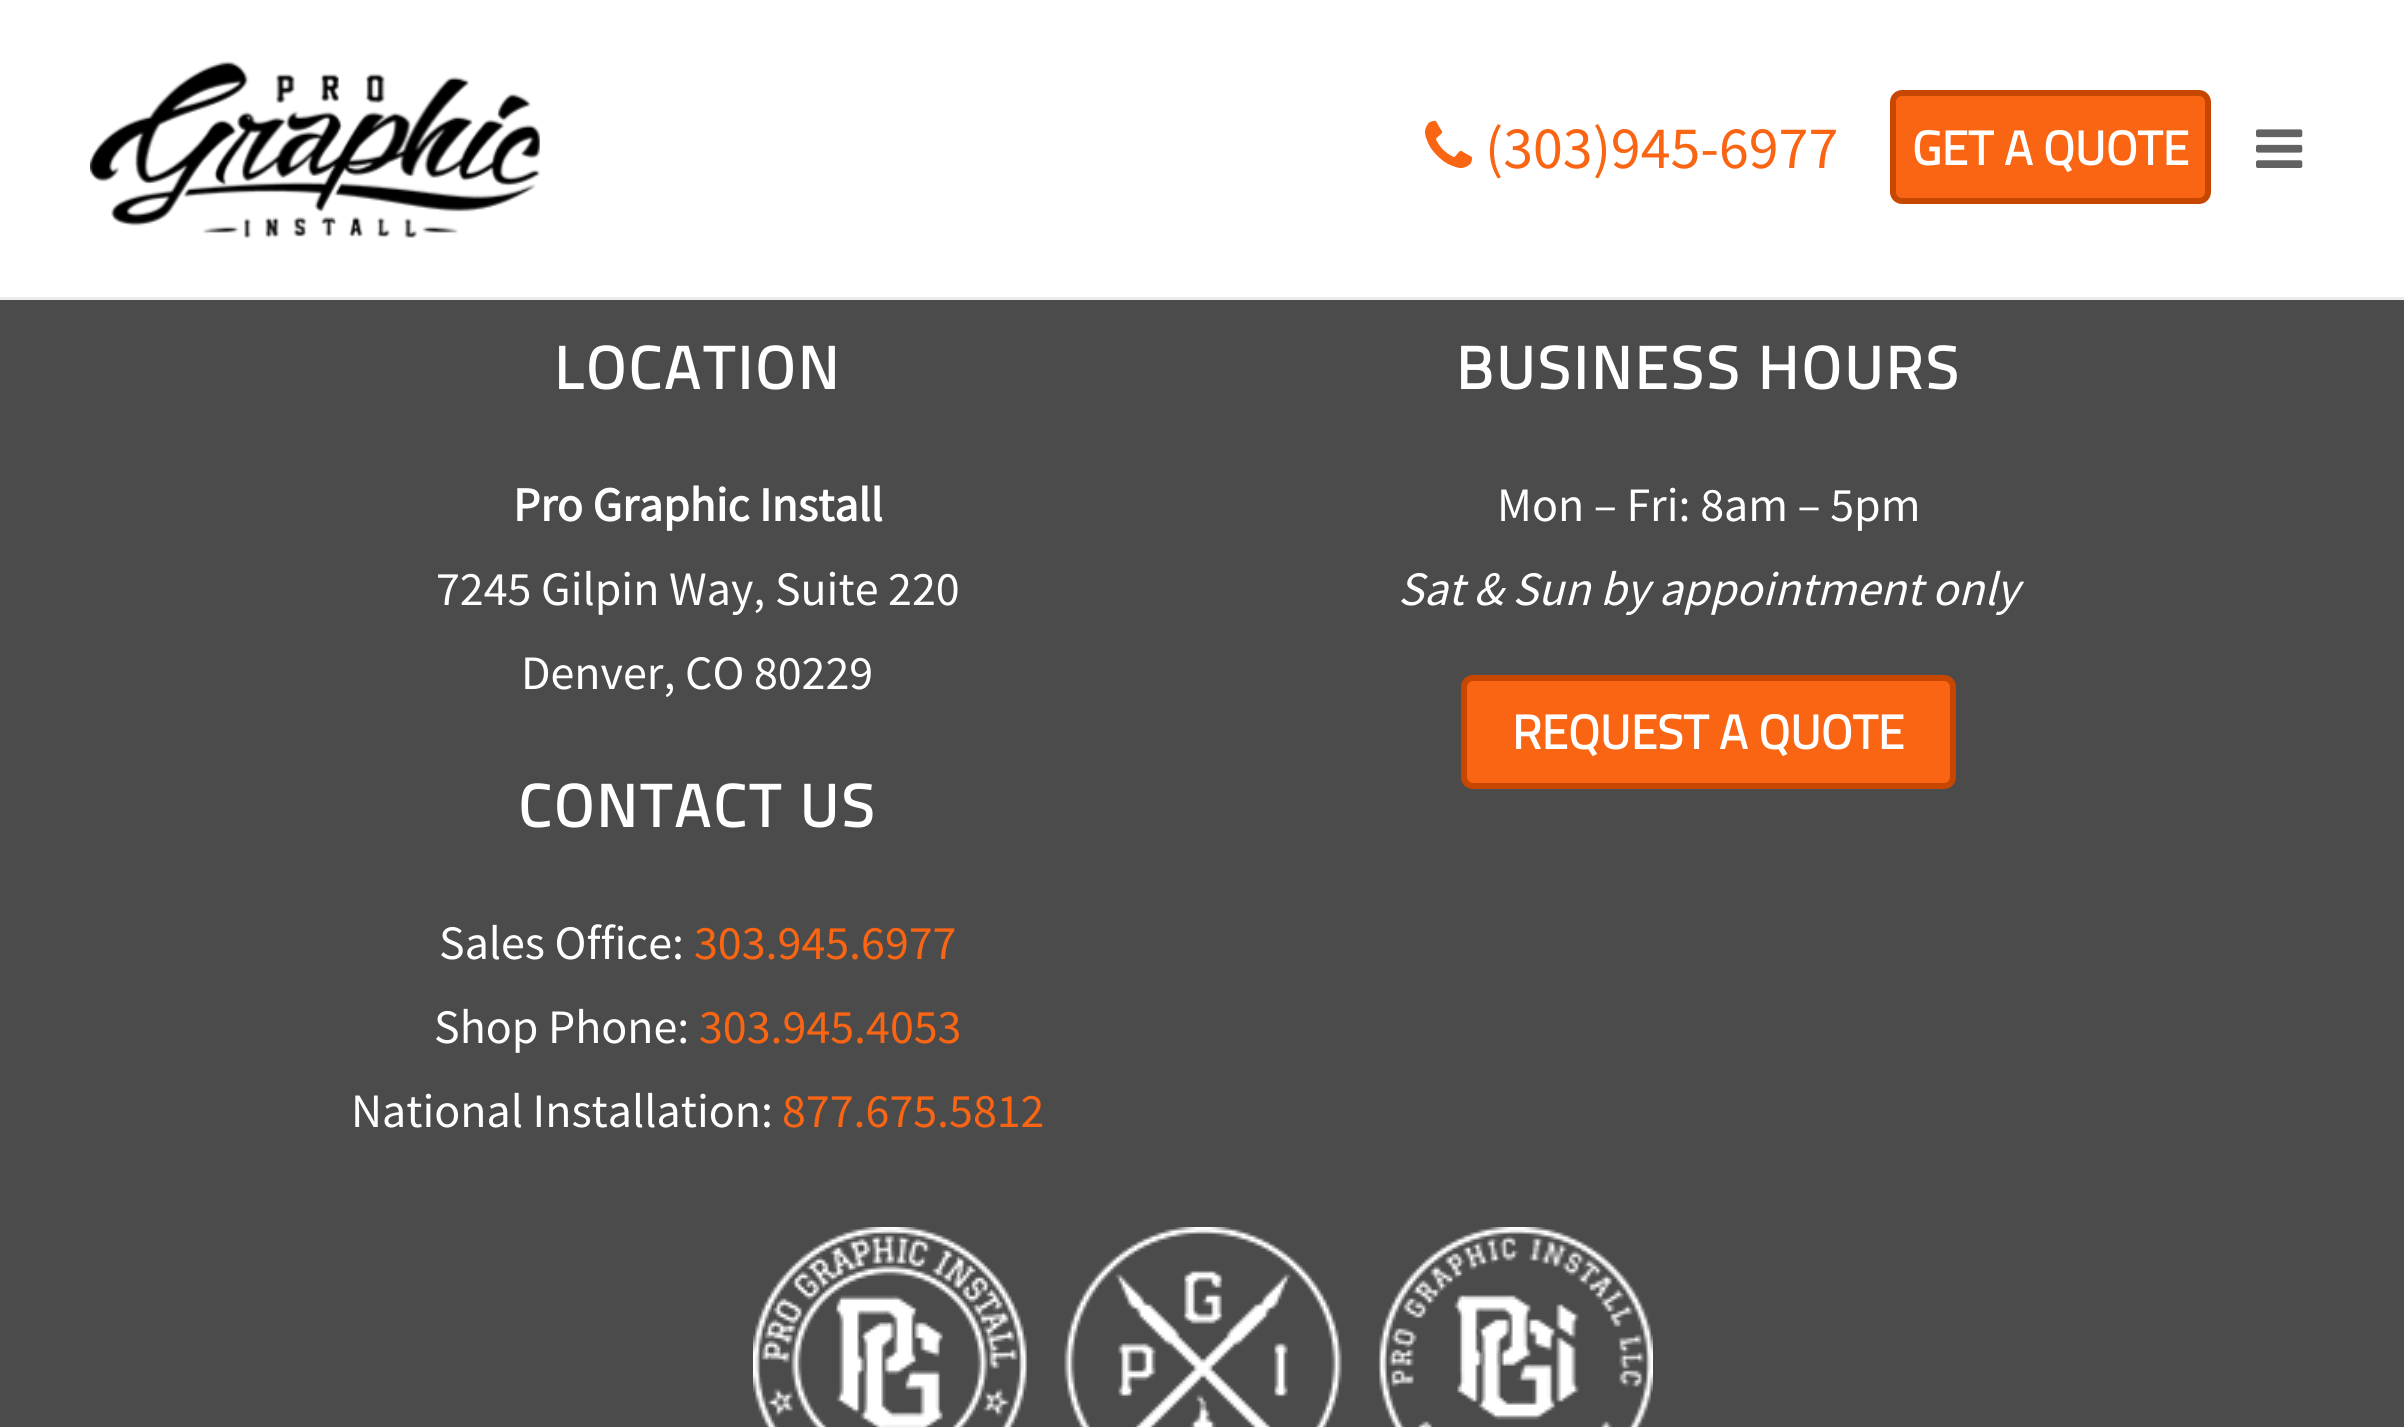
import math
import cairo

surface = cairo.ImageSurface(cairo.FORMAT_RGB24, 2404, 1427)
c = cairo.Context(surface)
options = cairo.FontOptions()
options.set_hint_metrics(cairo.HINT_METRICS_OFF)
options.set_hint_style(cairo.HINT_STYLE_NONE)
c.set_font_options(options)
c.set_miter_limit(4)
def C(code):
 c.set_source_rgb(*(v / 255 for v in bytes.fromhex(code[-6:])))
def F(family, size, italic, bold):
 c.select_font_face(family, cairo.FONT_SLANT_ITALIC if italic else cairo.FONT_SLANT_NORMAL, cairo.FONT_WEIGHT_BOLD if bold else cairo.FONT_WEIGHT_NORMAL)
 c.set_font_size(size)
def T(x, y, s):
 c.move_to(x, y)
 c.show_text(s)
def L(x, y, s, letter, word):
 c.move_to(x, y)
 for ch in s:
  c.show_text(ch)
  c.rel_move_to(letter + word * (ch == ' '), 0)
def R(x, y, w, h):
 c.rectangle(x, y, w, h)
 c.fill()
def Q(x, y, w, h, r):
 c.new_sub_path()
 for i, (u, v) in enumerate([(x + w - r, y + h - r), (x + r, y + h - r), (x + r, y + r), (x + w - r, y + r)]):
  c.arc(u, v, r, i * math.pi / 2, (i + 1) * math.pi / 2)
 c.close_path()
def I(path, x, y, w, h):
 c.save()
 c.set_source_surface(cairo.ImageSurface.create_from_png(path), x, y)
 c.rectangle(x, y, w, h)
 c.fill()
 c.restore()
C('4b4b4b')
c.paint()
C('ffffff')
R(0,0,2404,297)
C('ebebeb')
R(0,297,2404,3)
I('1.png',90,61,450,177)
I('2.png',1425,120,48,48)
F('Source Sans Pro',60,0,0)
C('f96513')
T(1485,168,'(303)945-6977')
Q(1893,93,315,108,9)
c.fill_preserve()
C('c84700')
c.set_line_width(6)
c.stroke()
F('Titillium Web',48,0,1)
C('ffffff')
T(1912,165,'GET A QUOTE')
I('3.png',2256,129,47,39)
F('Titillium Web',60,0,1)
L(554,389,'LOCATION',3,0)
F('Source Sans Pro',48,0,1)
T(513,521,'Pro Graphic Install')
F('Source Sans Pro',48,0,0)
T(436,605,'7245 Gilpin Way, Suite 220')
T(521,689,'Denver, CO 80229')
F('Titillium Web',60,0,1)
L(1456,389,'BUSINESS HOURS',3,0)
F('Source Sans Pro',48,0,0)
T(1497,521,'Mon – Fri: 8am – 5pm')
F('Source Sans Pro',48,1,0)
T(1398,605,'Sat & Sun by appointment only')
C('f96513')
Q(1464,678,489,108,9)
c.fill_preserve()
C('c84700')
c.stroke()
F('Titillium Web',48,0,1)
C('ffffff')
T(1512,749,'REQUEST A QUOTE')
F('Titillium Web',60,0,1)
L(518,827,'CONTACT US',3,0)
F('Source Sans Pro',48,0,0)
T(439,959,'Sales Office:')
C('f96513')
T(694,959,'303.945.6977')
C('ffffff')
T(434,1043,'Shop Phone:')
C('f96513')
T(699,1043,'303.945.4053')
C('ffffff')
T(351,1127,'National Installation:')
C('f96513')
T(782,1127,'877.675.5812')
I('4.png',753,1227,900,200)
surface.write_to_png('o.png')
